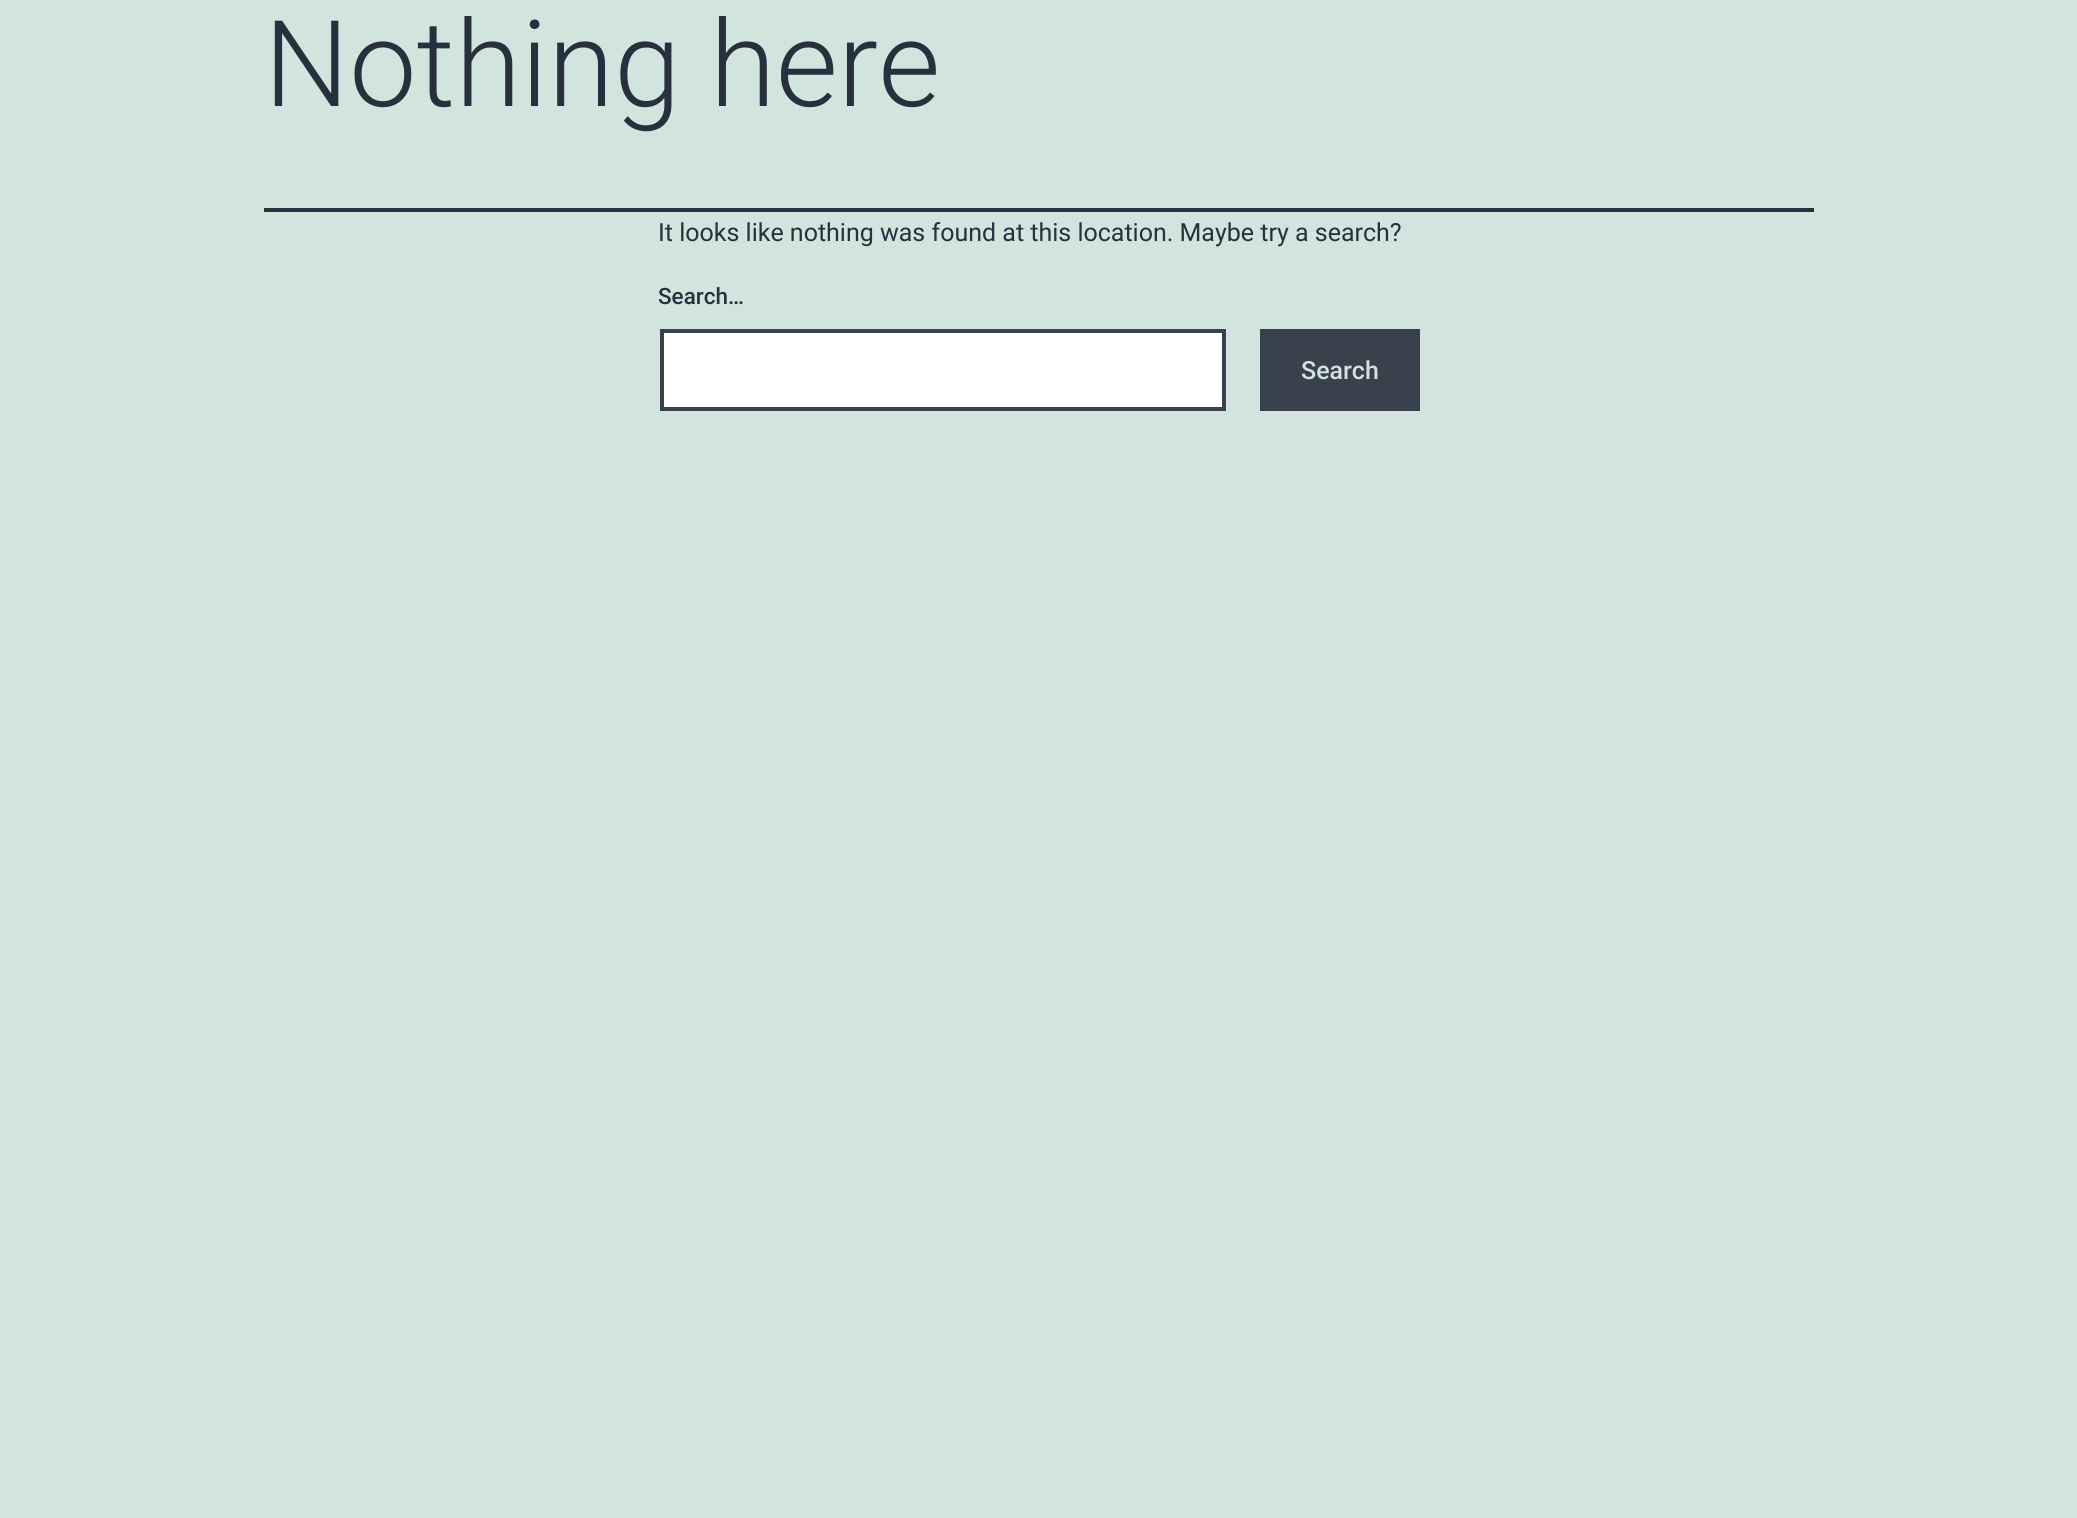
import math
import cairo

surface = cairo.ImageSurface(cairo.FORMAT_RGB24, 2077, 1518)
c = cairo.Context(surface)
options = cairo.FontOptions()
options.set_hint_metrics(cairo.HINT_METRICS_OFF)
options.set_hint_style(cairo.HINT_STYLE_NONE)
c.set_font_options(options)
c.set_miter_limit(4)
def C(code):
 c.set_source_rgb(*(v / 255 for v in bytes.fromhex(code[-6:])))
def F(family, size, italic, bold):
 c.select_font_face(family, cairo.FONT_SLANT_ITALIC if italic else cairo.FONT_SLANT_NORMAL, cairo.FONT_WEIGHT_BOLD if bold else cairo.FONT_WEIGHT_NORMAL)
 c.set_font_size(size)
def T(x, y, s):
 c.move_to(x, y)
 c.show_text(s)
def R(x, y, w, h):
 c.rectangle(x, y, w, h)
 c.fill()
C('d1e4dd')
c.paint()
C('28303d')
R(264,208,1550,4)
F('Roboto Light',120,0,0)
T(264,106,'Nothing here')
F('Roboto',25,0,0)
T(658,241,'It looks like nothing was found at this location. Maybe try a search?')
F('Roboto Medium',22.5,0,0)
T(658,304,'Search…')
C('ffffff')
c.rectangle(662,331,562,78)
c.fill_preserve()
C('39414d')
c.set_line_width(4)
c.stroke()
R(1260,329,160,82)
F('Roboto Medium',25,0,0)
C('d1e4dd')
T(1301,379,'Search')
surface.write_to_png('o.png')
